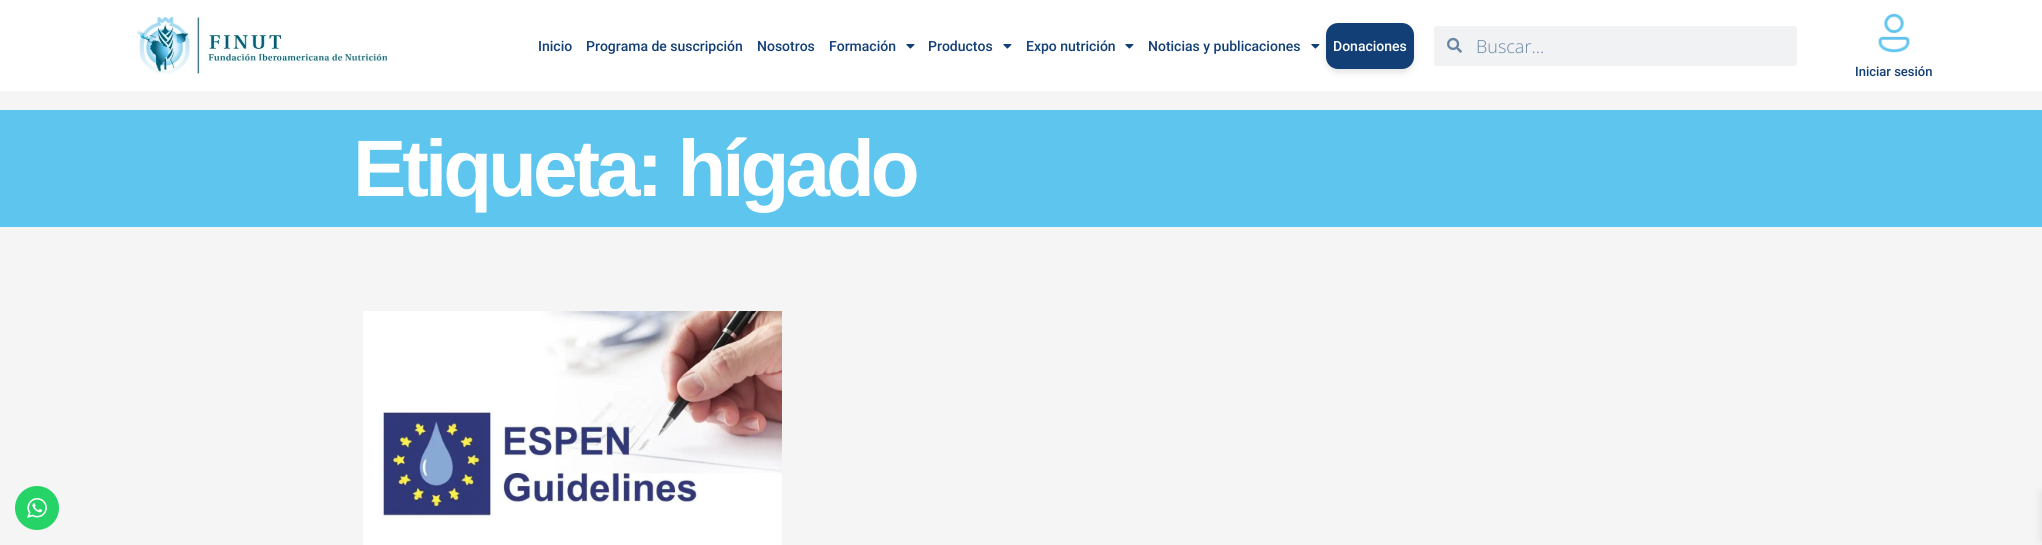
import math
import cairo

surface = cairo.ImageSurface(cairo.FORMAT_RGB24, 2042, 545)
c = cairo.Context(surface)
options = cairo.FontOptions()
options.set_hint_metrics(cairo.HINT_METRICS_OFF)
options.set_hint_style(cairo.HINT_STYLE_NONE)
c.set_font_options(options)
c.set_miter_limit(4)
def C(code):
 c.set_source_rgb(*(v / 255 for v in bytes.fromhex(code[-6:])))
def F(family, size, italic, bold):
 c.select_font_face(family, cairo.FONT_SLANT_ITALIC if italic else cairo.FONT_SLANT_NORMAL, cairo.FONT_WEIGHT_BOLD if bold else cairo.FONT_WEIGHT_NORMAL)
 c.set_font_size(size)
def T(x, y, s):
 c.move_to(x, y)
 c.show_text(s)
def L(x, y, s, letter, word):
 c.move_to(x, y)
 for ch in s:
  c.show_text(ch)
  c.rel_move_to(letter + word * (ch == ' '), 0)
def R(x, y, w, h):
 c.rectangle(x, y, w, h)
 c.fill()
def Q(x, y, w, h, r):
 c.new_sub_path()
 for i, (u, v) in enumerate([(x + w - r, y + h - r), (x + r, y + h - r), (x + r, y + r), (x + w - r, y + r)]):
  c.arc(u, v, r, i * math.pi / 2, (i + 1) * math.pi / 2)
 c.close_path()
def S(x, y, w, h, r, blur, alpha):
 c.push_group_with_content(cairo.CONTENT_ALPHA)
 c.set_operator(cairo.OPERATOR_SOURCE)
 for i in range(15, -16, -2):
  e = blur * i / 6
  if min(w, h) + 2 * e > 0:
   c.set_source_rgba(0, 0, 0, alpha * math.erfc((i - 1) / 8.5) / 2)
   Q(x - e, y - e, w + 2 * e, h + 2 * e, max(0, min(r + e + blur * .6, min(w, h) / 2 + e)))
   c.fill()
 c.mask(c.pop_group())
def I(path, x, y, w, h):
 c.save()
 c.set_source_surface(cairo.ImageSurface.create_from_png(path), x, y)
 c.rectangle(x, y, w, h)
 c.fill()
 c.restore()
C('f5f5f5')
c.paint()
C('ffffff')
R(0,0,2042,91)
I('1.png',137,17,250,57)
F('Roboto Medium',14,0,0)
C('123f75')
T(538,51,'Inicio')
T(586,51,'Programa de suscripción')
T(757,51,'Nosotros')
T(829,51,'Formación')
I('2.png',906,44,9,5)
T(928,51,'Productos')
I('2.png',1003,44,9,5)
T(1026,51,'Expo nutrición')
I('2.png',1125,44,9,5)
T(1148,51,'Noticias y publicaciones')
I('2.png',1311,44,9,5)
C('000000')
S(1326,27,88,46,12,3,.1)
C('123f75')
Q(1326,23,88,46,12)
c.fill()
C('ffffff')
T(1333,51,'Donaciones')
C('f1f2f3')
Q(1434,26,363,40,3)
c.fill()
I('3.png',1447,37,15,16)
F('Open Sans Light',18,0,0)
C('6b87a7')
T(1476,53,'Buscar...')
I('4.png',1878,13,32,40)
F('Roboto Medium',13,0,0)
C('123f75')
T(1855,76,'Iniciar sesión')
C('5ec5ef')
R(0,110,2042,117)
F('Arimo',80,0,1)
C('ffffff')
L(353,196,'Etiqueta: hígado',-4,0)
I('5.png',363,311,419,219)
R(363,530,419,15)
C('25d366')
c.arc(37,508,22,0,2 * math.pi)
c.fill()
I('6.png',27,498,20,20)
C('000000')
S(2042,493,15,47,0,5,.1)
surface.write_to_png('o.png')
